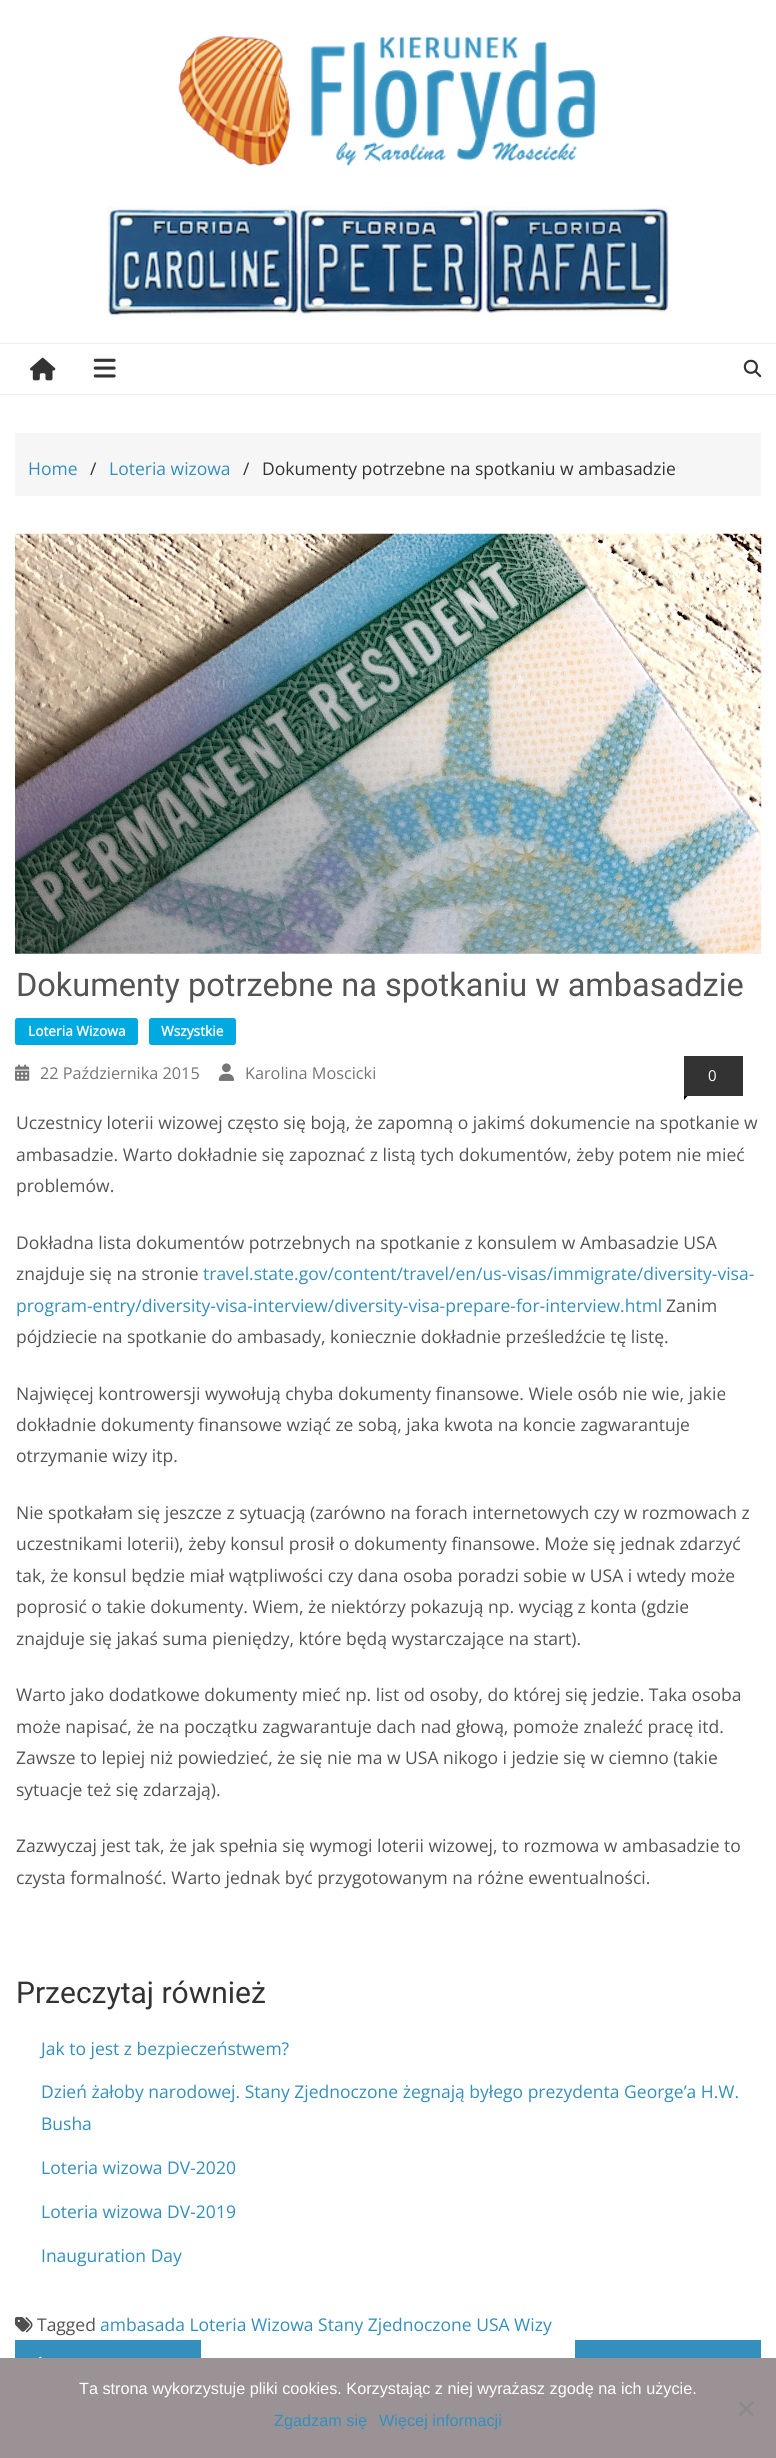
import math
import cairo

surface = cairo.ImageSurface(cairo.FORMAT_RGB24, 776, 2458)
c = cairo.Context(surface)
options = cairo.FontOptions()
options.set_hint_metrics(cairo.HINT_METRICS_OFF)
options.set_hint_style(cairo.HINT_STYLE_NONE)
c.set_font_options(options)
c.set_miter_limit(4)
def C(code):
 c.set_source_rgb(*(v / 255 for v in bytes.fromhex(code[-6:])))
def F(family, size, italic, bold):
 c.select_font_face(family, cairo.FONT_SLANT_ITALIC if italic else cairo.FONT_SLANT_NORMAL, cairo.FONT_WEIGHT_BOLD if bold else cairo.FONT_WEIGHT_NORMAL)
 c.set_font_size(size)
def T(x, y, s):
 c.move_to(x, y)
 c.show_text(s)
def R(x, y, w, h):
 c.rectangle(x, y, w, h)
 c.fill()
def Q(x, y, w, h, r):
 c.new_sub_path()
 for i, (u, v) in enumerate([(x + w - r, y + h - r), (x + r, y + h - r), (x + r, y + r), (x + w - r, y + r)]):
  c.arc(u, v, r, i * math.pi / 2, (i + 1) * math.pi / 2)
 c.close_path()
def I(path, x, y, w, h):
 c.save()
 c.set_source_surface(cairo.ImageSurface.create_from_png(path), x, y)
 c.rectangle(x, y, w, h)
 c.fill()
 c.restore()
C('ffffff')
c.paint()
I('1.png',178,36,418,131)
I('2.png',107,206,563,111)
C('eeeeee')
R(0,343,776,1)
R(0,394,776,1)
I('3.png',30,357,26,24)
I('4.png',93,358,23,20)
I('5.png',743,359,19,19)
C('f6f6f6')
R(15,433,746,63)
F('Open Sans',17.5,0,0)
C('348fbc')
T(28,475,'Home')
C('333333')
T(90,475,'/')
C('348fbc')
T(109,475,'Loteria wizowa')
C('333333')
T(243,475,'/')
T(262,475,'Dokumenty potrzebne na spotkaniu w ambasadzie')
I('6.png',15,533,747,421)
F('Roboto',32.5,0,0)
C('545454')
T(16,996,'Dokumenty potrzebne na spotkaniu w ambasadzie')
C('00a9e0')
Q(15,1018,123,27,2.5)
c.fill()
F('Open Sans',13.75,0,1)
C('ffffff')
T(28,1036,'Loteria Wizowa')
C('00a9e0')
Q(149,1018,87,27,2.5)
c.fill()
C('ffffff')
T(161,1036,'Wszystkie')
I('7.png',15,1064,15,17)
F('Open Sans',16.25,0,0)
C('767676')
T(40,1079,'22 Października 2015')
I('8.png',218,1063,16,18)
T(245,1079,'Karolina Moscicki')
C('333333')
R(684,1056,59,40)
F('Open Sans',15,0,0)
C('ffffff')
T(708,1081,'0')
C('000000')
c.new_path()
c.move_to(684,1096)
c.line_to(687.5,1096)
c.line_to(684,1100)
c.close_path()
c.fill()
F('Open Sans',17.5,0,0)
C('545454')
T(16,1129,'Uczestnicy loterii wizowej często się boją, że zapomną o jakimś dokumencie na spotkanie w')
T(16,1161,'ambasadzie. Warto dokładnie się zapoznać z listą tych dokumentów, żeby potem nie mieć')
T(16,1192,'problemów.')
T(16,1249,'Dokładna lista dokumentów potrzebnych na spotkanie z konsulem w Ambasadzie USA')
T(16,1280,'znajduje się na stronie')
C('348fbc')
T(203,1280,'travel.state.gov/content/travel/en/us-visas/immigrate/diversity-visa-')
T(16,1312,'program-entry/diversity-visa-interview/diversity-visa-prepare-for-interview.html')
C('545454')
T(666,1312,'Zanim')
T(16,1343,'pójdziecie na spotkanie do ambasady, koniecznie dokładnie prześledźcie tę listę.')
T(16,1400,'Najwięcej kontrowersji wywołują chyba dokumenty finansowe. Wiele osób nie wie, jakie')
T(16,1431,'dokładnie dokumenty finansowe wziąć ze sobą, jaka kwota na koncie zagwarantuje')
T(16,1462,'otrzymanie wizy itp.')
T(16,1519,'Nie spotkałam się jeszcze z sytuacją (zarówno na forach internetowych czy w rozmowach z')
T(16,1550,'uczestnikami loterii), żeby konsul prosił o dokumenty finansowe. Może się jednak zdarzyć')
T(16,1582,'tak, że konsul będzie miał wątpliwości czy dana osoba poradzi sobie w USA i wtedy może')
T(16,1613,'poprosić o takie dokumenty. Wiem, że niektórzy pokazują np. wyciąg z konta (gdzie')
T(16,1645,'znajduje się jakaś suma pieniędzy, które będą wystarczające na start).')
T(16,1701,'Warto jako dodatkowe dokumenty mieć np. list od osoby, do której się jedzie. Taka osoba')
T(16,1733,'może napisać, że na początku zagwarantuje dach nad głową, pomoże znaleźć pracę itd.')
T(16,1764,'Zawsze to lepiej niż powiedzieć, że się nie ma w USA nikogo i jedzie się w ciemno (takie')
T(16,1796,'sytuacje też się zdarzają).')
T(16,1852,'Zazwyczaj jest tak, że jak spełnia się wymogi loterii wizowej, to rozmowa w ambasadzie to')
T(16,1884,'czysta formalność. Warto jednak być przygotowanym na różne ewentualności.')
F('Roboto',30,0,0)
C('333333')
T(16,2003,'Przeczytaj również')
F('Open Sans',17.5,0,0)
C('348fbc')
T(41,2055,'Jak to jest z bezpieczeństwem?')
T(41,2098,'Dzień żałoby narodowej. Stany Zjednoczone żegnają byłego prezydenta George’a H.W.')
T(41,2130,'Busha')
T(41,2174,'Loteria wizowa DV-2020')
T(41,2218,'Loteria wizowa DV-2019')
T(41,2262,'Inauguration Day')
I('9.png',15,2317,18,16)
C('545454')
T(37,2331,'Tagged')
C('348fbc')
T(100,2331,'ambasada Loteria Wizowa Stany Zjednoczone USA Wizy')
R(15,2340,186,18)
I('10.png',38,2356,4,2)
R(575,2340,186,18)
C('9b9296')
R(0,2358,776,100)
F('Liberation Sans',16.25,0,0)
C('ffffff')
T(79,2394,'Ta strona wykorzystuje pliki cookies. Korzystając z niej wyrażasz zgodę na ich użycie.')
C('8e898b')
c.new_path()
c.move_to(752,2401)
c.line_to(754,2403)
c.line_to(740.5,2416.5)
c.line_to(738.5,2414.5)
c.close_path()
c.fill()
c.new_path()
c.move_to(738.5,2403)
c.line_to(740.5,2401)
c.line_to(754,2414.5)
c.line_to(752,2416.5)
c.close_path()
c.fill()
C('348fbc')
T(274,2426,'Zgadzam się')
T(379,2426,'Więcej informacji')
surface.write_to_png('o.png')
